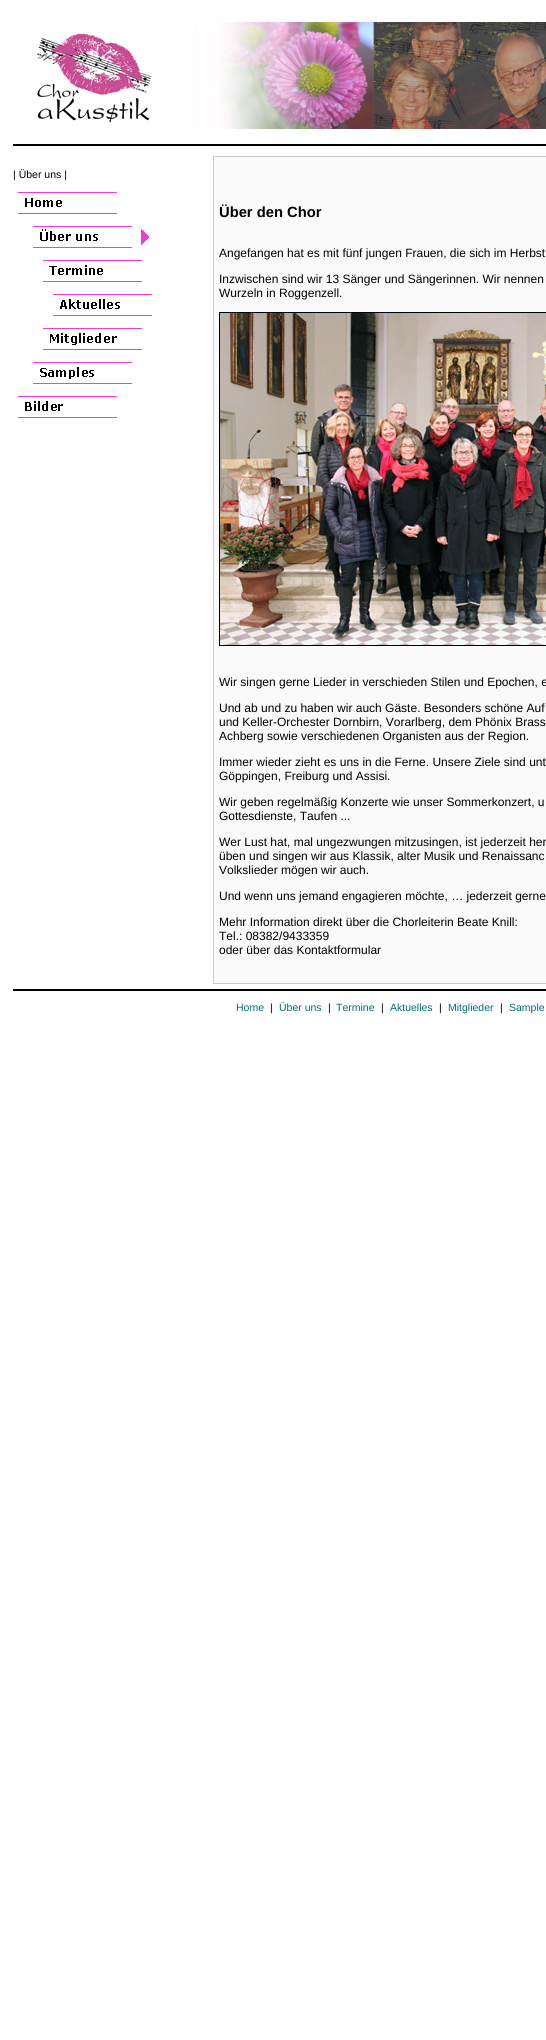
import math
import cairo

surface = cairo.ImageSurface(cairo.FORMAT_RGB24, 546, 2040)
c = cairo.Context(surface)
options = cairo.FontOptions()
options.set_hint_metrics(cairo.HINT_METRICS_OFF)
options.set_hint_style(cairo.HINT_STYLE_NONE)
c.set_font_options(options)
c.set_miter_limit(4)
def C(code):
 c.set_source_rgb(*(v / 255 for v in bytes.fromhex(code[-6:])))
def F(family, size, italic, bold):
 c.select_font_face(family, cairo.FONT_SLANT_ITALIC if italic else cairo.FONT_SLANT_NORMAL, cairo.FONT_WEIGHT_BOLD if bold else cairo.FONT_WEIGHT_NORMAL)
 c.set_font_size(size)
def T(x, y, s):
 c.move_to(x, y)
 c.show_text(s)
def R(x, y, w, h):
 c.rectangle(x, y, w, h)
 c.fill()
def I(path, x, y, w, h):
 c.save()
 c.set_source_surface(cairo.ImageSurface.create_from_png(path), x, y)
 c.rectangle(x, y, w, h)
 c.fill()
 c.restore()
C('ffffff')
c.paint()
I('1.png',36,22,510,107)
C('000000')
R(13,144,533,2)
F('Liberation Sans',10.5,0,0)
T(13,178,'| Über uns |')
I('2.png',18,192,99,22)
I('3.png',33,226,99,22)
I('4.png',141,229,9,16)
I('5.png',43,260,99,22)
I('6.png',53,294,99,22)
I('7.png',43,328,99,22)
I('8.png',33,362,99,22)
I('9.png',18,396,99,22)
C('fafafa')
c.rectangle(213.5,156.5,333,827)
c.fill_preserve()
C('cccccc')
c.set_line_width(1)
c.stroke()
F('Liberation Sans',14.75,0,1)
C('000000')
T(219,217,'Über den Chor')
F('Liberation Sans',12,0,0)
T(219,257,'Angefangen hat es mit fünf jungen Frauen, die sich im Herbst')
T(219,283,'Inzwischen sind wir 13 Sänger und Sängerinnen. Wir nennen')
T(219,297,'Wurzeln in Roggenzell.')
c.rectangle(219.5,312.5,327,333)
c.stroke()
I('10.png',220,313,326,332)
T(219,686,'Wir singen gerne Lieder in verschieden Stilen und Epochen, e')
T(219,712,'Und ab und zu haben wir auch Gäste. Besonders schöne Auf')
T(219,726,'und Keller-Orchester Dornbirn, Vorarlberg, dem Phönix Brass')
T(219,740,'Achberg sowie verschiedenen Organisten aus der Region.')
T(219,766,'Immer wieder zieht es uns in die Ferne. Unsere Ziele sind unt')
T(219,780,'Göppingen, Freiburg und Assisi.')
T(219,806,'Wir geben regelmäßig Konzerte wie unser Sommerkonzert, u')
T(219,820,'Gottesdienste, Taufen ...')
T(219,846,'Wer Lust hat, mal ungezwungen mitzusingen, ist jederzeit her')
T(219,860,'üben und singen wir aus Klassik, alter Musik und Renaissanc')
T(219,874,'Volkslieder mögen wir auch.')
T(219,900,'Und wenn uns jemand engagieren möchte, … jederzeit gerne')
T(219,926,'Mehr Information direkt über die Chorleiterin Beate Knill:')
T(219,940,'Tel.: 08382/9433359')
T(219,954,'oder über das Kontaktformular')
R(13,989,533,2)
F('Liberation Sans',10.5,0,0)
C('016c75')
T(236,1011,'Home')
C('000000')
T(270,1011,'|')
C('016c75')
T(279,1011,'Über uns')
C('000000')
T(328,1011,'|')
C('016c75')
T(336,1011,'Termine')
C('000000')
T(381,1011,'|')
C('016c75')
T(390,1011,'Aktuelles')
C('000000')
T(439,1011,'|')
C('016c75')
T(448,1011,'Mitglieder')
C('000000')
T(500,1011,'|')
C('016c75')
T(509,1011,'Sample')
surface.write_to_png('o.png')
